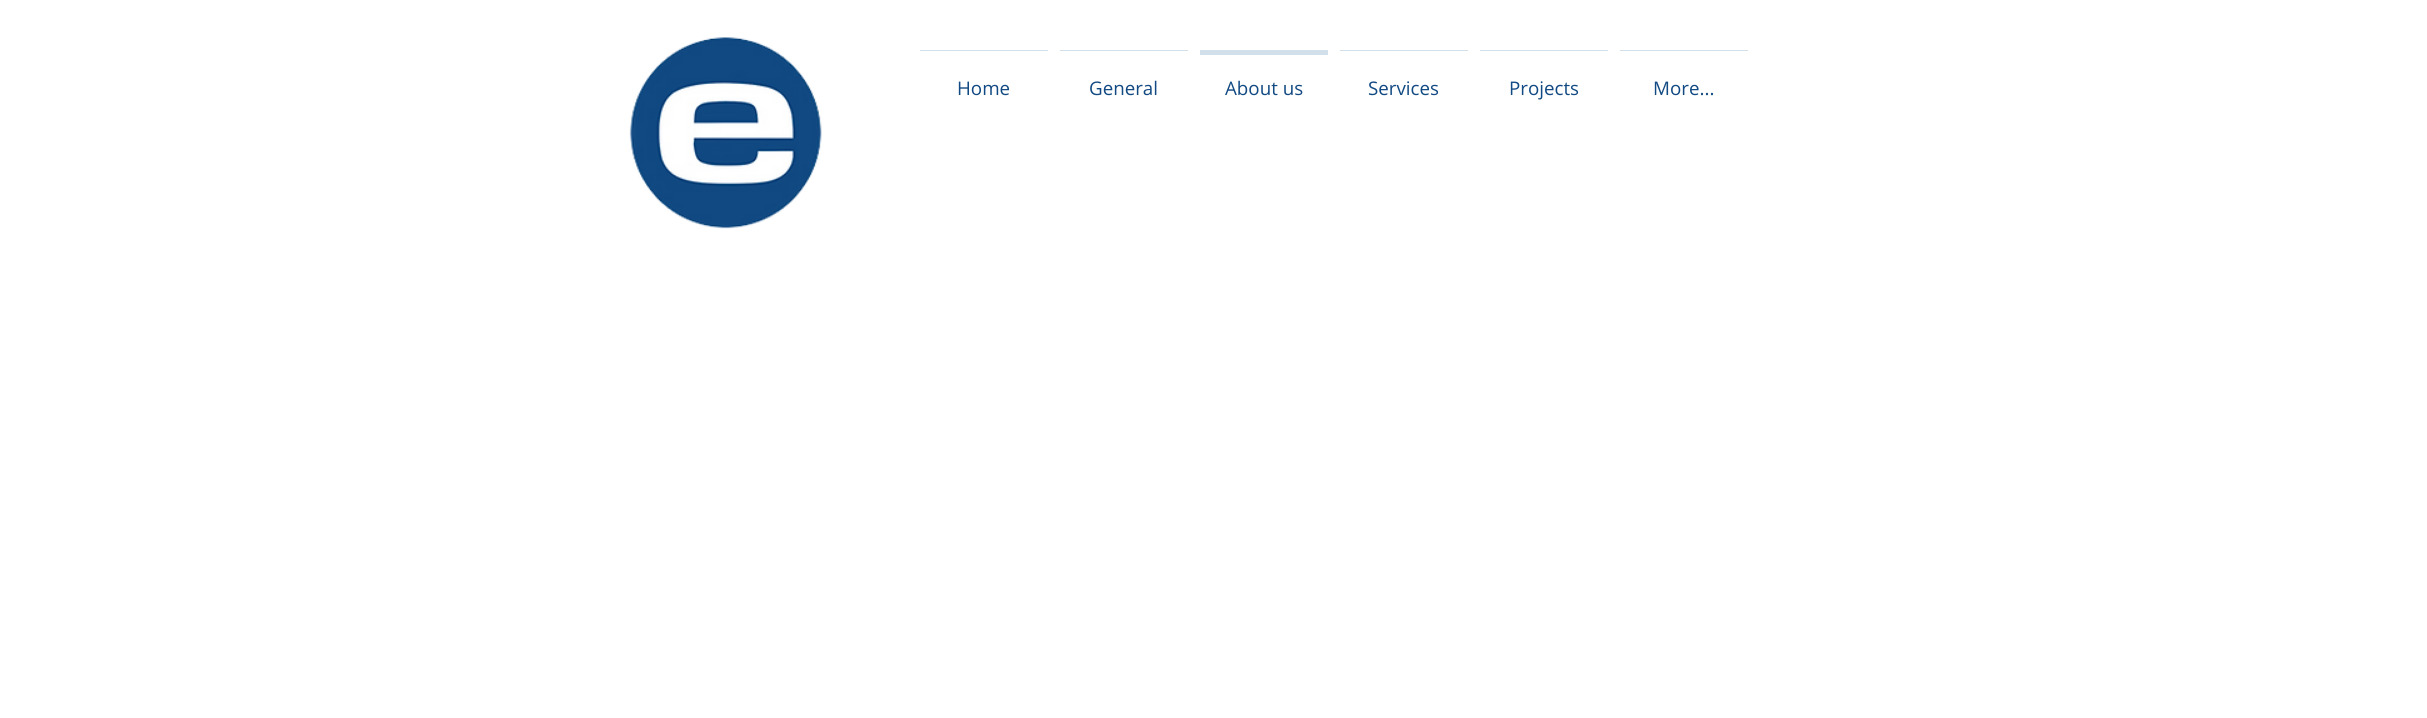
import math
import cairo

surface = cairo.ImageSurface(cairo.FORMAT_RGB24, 2427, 718)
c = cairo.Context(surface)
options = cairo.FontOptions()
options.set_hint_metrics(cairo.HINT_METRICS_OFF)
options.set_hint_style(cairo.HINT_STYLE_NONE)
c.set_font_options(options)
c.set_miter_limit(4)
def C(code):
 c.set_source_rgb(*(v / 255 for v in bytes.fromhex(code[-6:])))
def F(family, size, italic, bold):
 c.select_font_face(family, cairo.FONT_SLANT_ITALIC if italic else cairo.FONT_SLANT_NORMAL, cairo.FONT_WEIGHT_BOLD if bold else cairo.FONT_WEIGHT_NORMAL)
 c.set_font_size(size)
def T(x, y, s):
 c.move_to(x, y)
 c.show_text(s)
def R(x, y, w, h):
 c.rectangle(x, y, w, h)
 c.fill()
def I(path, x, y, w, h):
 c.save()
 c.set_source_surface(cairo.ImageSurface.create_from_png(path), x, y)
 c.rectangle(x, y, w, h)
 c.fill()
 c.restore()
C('ffffff')
c.paint()
I('1.png',629,37,193,192)
C('d1e0eb')
R(920,50,128,1)
F('Open Sans',18.75,0,0)
C('114982')
T(957,95,'Home')
C('d1e0eb')
R(1060,50,128,1)
C('114982')
T(1089,95,'General')
C('d1e0eb')
R(1200,50,128,5)
C('114982')
T(1225,95,'About us')
C('d1e0eb')
R(1340,50,128,1)
C('114982')
T(1368,95,'Services')
C('d1e0eb')
R(1480,50,128,1)
C('114982')
T(1509,95,'Projects')
C('d1e0eb')
R(1620,50,128,1)
C('114982')
T(1653,95,'More...')
surface.write_to_png('o.png')
